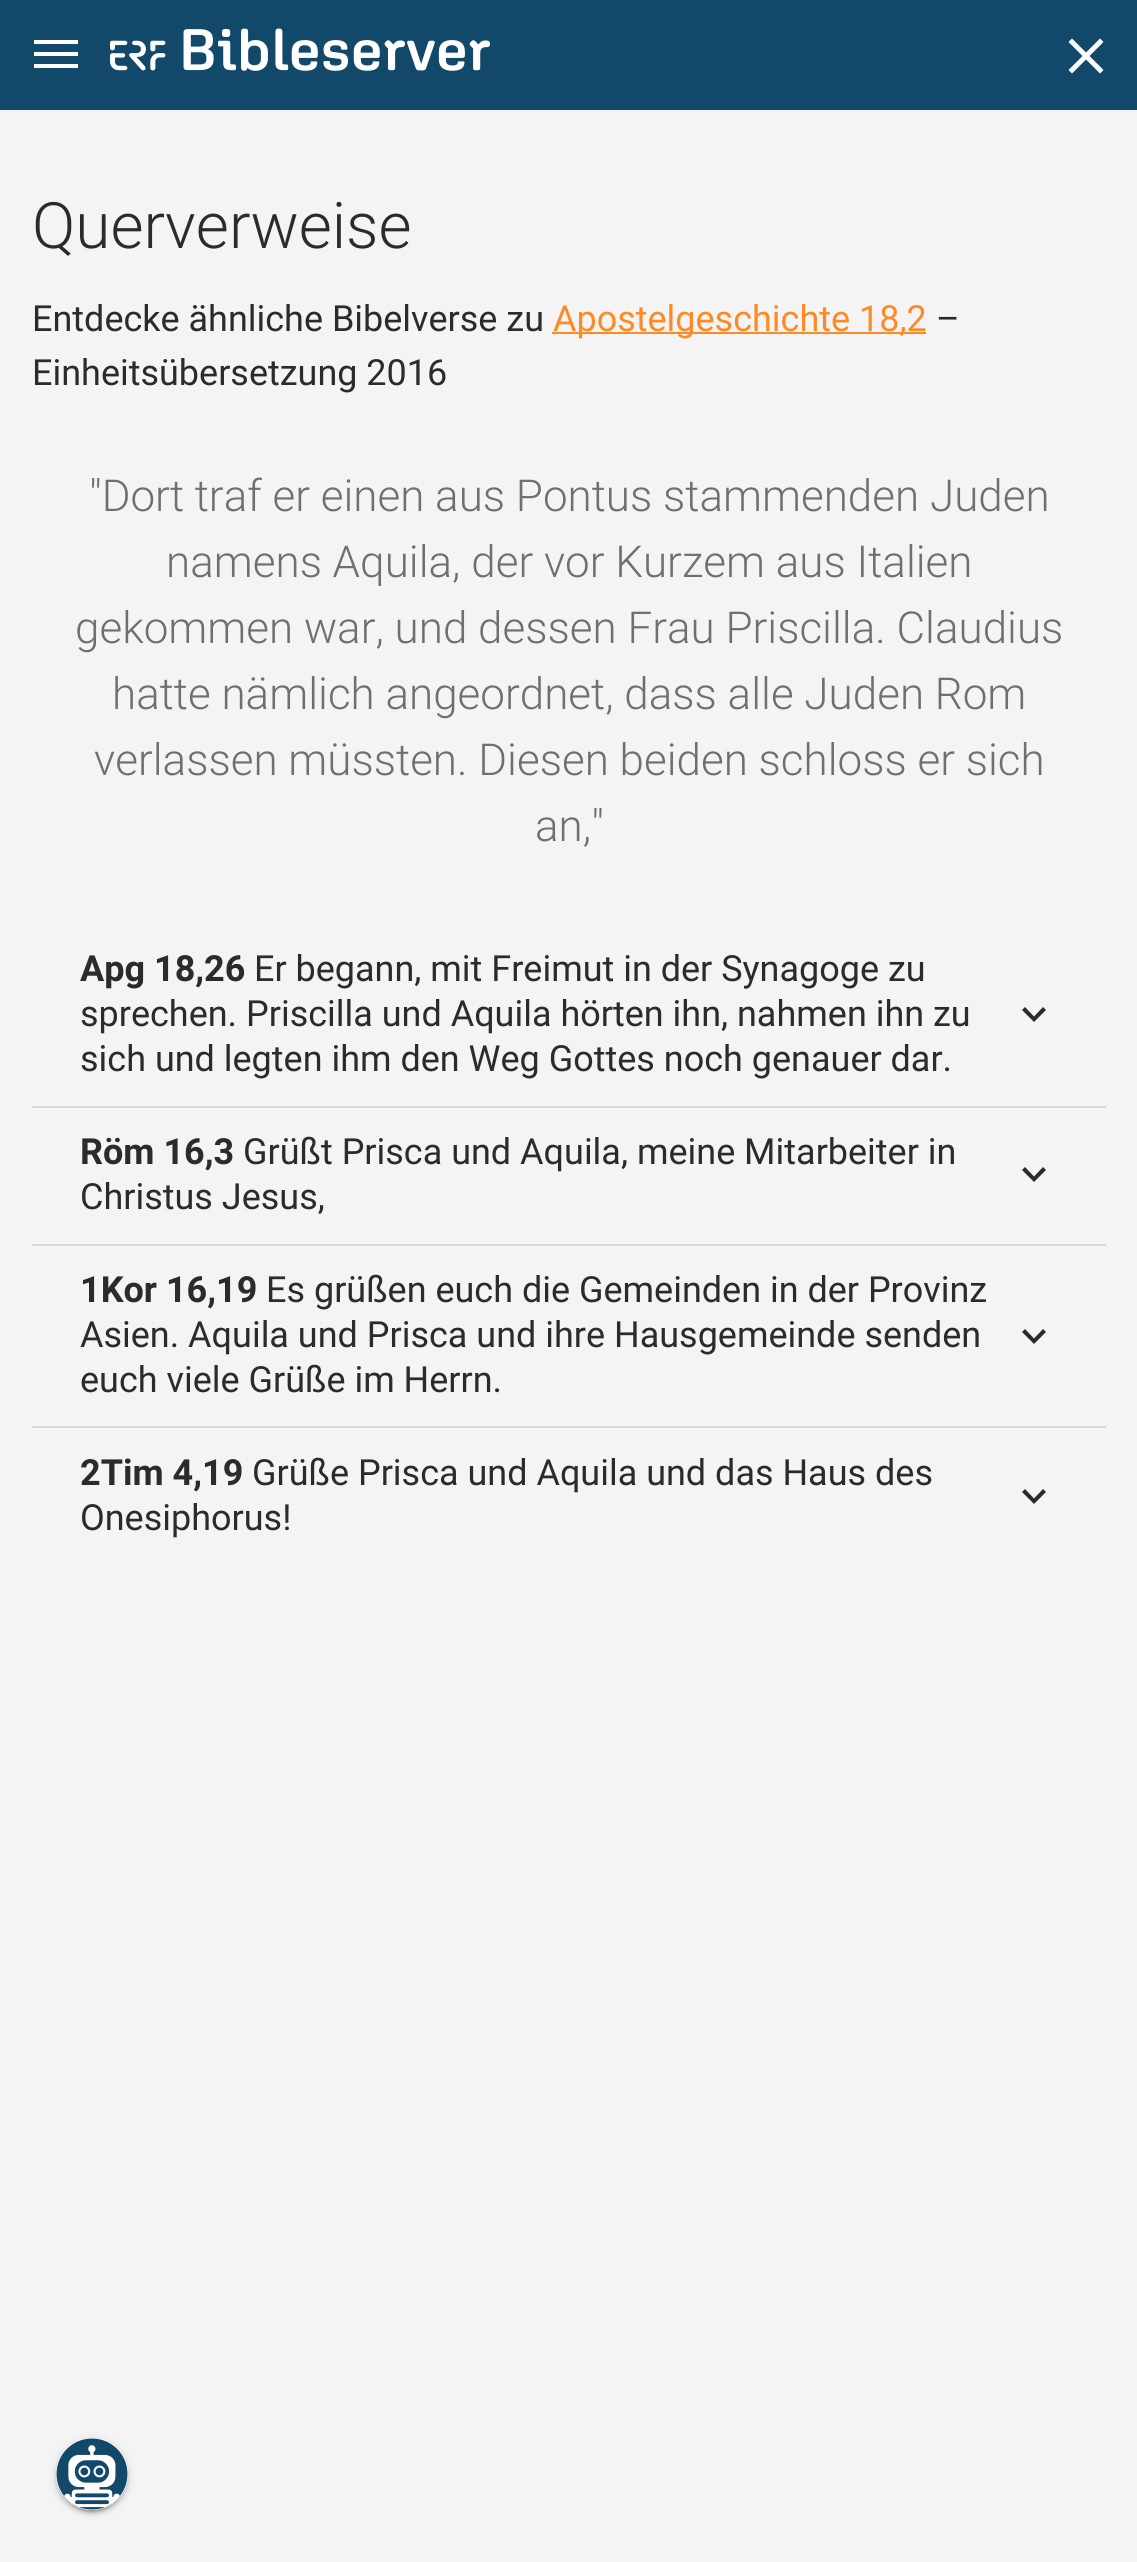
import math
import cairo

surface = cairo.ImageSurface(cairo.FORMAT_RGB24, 1137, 2562)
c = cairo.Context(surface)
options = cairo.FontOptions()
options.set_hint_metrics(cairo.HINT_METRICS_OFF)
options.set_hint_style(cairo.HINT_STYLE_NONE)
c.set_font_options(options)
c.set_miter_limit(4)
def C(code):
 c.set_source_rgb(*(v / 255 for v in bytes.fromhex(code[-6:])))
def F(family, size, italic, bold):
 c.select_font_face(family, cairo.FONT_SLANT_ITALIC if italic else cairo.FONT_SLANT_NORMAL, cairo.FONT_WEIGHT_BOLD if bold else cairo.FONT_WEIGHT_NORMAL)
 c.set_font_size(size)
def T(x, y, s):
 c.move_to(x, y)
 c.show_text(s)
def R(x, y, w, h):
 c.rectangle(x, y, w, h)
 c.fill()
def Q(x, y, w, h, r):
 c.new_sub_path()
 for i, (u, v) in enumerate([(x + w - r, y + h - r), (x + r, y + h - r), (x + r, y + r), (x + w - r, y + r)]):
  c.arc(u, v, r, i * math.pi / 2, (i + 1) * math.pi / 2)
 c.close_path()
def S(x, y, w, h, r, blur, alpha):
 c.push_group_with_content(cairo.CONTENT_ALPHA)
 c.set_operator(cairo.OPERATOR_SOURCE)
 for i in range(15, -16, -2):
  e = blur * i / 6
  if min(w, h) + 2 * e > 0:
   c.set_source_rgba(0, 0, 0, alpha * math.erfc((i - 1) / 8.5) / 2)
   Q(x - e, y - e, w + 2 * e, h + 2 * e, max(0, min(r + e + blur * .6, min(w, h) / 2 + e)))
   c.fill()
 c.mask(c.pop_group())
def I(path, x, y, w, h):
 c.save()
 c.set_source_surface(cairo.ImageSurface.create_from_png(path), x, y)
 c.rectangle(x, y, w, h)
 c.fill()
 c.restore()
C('f4f4f4')
c.paint()
C('12496a')
R(0,0,1137,110)
C('ffffff')
c.new_path()
c.move_to(1103.5,42)
c.line_to(1100,38.5)
c.line_to(1086,52.5)
c.line_to(1072,38.5)
c.line_to(1068.5,42)
c.line_to(1082.5,56)
c.line_to(1068.5,70)
c.line_to(1072,73.5)
c.line_to(1086,59.5)
c.line_to(1100,73.5)
c.line_to(1103.5,70)
c.line_to(1089.5,56)
c.close_path()
c.fill()
R(34,40,44,4)
R(34,52,44,4)
R(34,64,44,4)
I('1.png',110,28,380,43)
F('Roboto Light',64,0,0)
C('2b2b2b')
T(32,248,'Querverweise')
F('Roboto',36,0,0)
T(32,331,'Entdecke ähnliche Bibelverse zu')
C('fd8a24')
R(552,332,374,2)
T(553,331,'Apostelgeschichte 18,2')
C('2b2b2b')
T(936,331,'–')
T(32,385,'Einheitsübersetzung 2016')
F('Roboto Light',44,0,0)
C('6f6f6f')
T(89,511,'"Dort traf er einen aus Pontus stammenden Juden')
T(166,577,'namens Aquila, der vor Kurzem aus Italien')
T(75,643,'gekommen war, und dessen Frau Priscilla. Claudius')
T(112,709,'hatte nämlich angeordnet, dass alle Juden Rom')
T(94,775,'verlassen müssten. Diesen beiden schloss er sich')
T(535,841,'an,"')
F('Roboto',36,0,1)
C('2b2b2b')
T(80,981,'Apg 18,26')
F('Roboto',36,0,0)
T(254,981,'Er begann, mit Freimut in der Synagoge zu')
T(80,1026,'sprechen. Priscilla und Aquila hörten ihn, nahmen ihn zu')
T(80,1071,'sich und legten ihm den Weg Gottes noch genauer dar.')
c.new_path()
c.move_to(1025,1007)
c.line_to(1034,1016.5)
c.line_to(1043,1007)
c.line_to(1046,1010)
c.line_to(1034,1022)
c.line_to(1022,1010)
c.close_path()
c.fill()
C('d7d7d7')
R(32,1106,1074,2)
F('Roboto',36,0,1)
C('2b2b2b')
T(80,1164,'Röm 16,3')
F('Roboto',36,0,0)
T(243,1164,'Grüßt Prisca und Aquila, meine Mitarbeiter in')
T(80,1209,'Christus Jesus,')
c.new_path()
c.move_to(1025,1167)
c.line_to(1034,1176.5)
c.line_to(1043,1167)
c.line_to(1046,1170)
c.line_to(1034,1182)
c.line_to(1022,1170)
c.close_path()
c.fill()
C('d7d7d7')
R(32,1244,1074,2)
F('Roboto',36,0,1)
C('2b2b2b')
T(80,1302,'1Kor 16,19')
F('Roboto',36,0,0)
T(266,1302,'Es grüßen euch die Gemeinden in der Provinz')
T(80,1347,'Asien. Aquila und Prisca und ihre Hausgemeinde senden')
T(80,1392,'euch viele Grüße im Herrn.')
c.new_path()
c.move_to(1025,1329)
c.line_to(1034,1338.5)
c.line_to(1043,1329)
c.line_to(1046,1332)
c.line_to(1034,1344)
c.line_to(1022,1332)
c.close_path()
c.fill()
C('d7d7d7')
R(32,1426,1074,2)
F('Roboto',36,0,1)
C('2b2b2b')
T(80,1485,'2Tim 4,19')
F('Roboto',36,0,0)
T(252,1485,'Grüße Prisca und Aquila und das Haus des')
T(80,1530,'Onesiphorus!')
c.new_path()
c.move_to(1025,1489)
c.line_to(1034,1498.5)
c.line_to(1043,1489)
c.line_to(1046,1492)
c.line_to(1034,1504)
c.line_to(1022,1492)
c.close_path()
c.fill()
C('000000')
S(56,2440,72,72,36,5,.12)
S(56,2442,72,72,36,2,.14)
S(60,2448,64,64,32,1,.2)
C('ffffff')
c.arc(92,2474,36,0,2 * math.pi)
c.fill()
I('2.png',56,2438,72,72)
surface.write_to_png('o.png')
